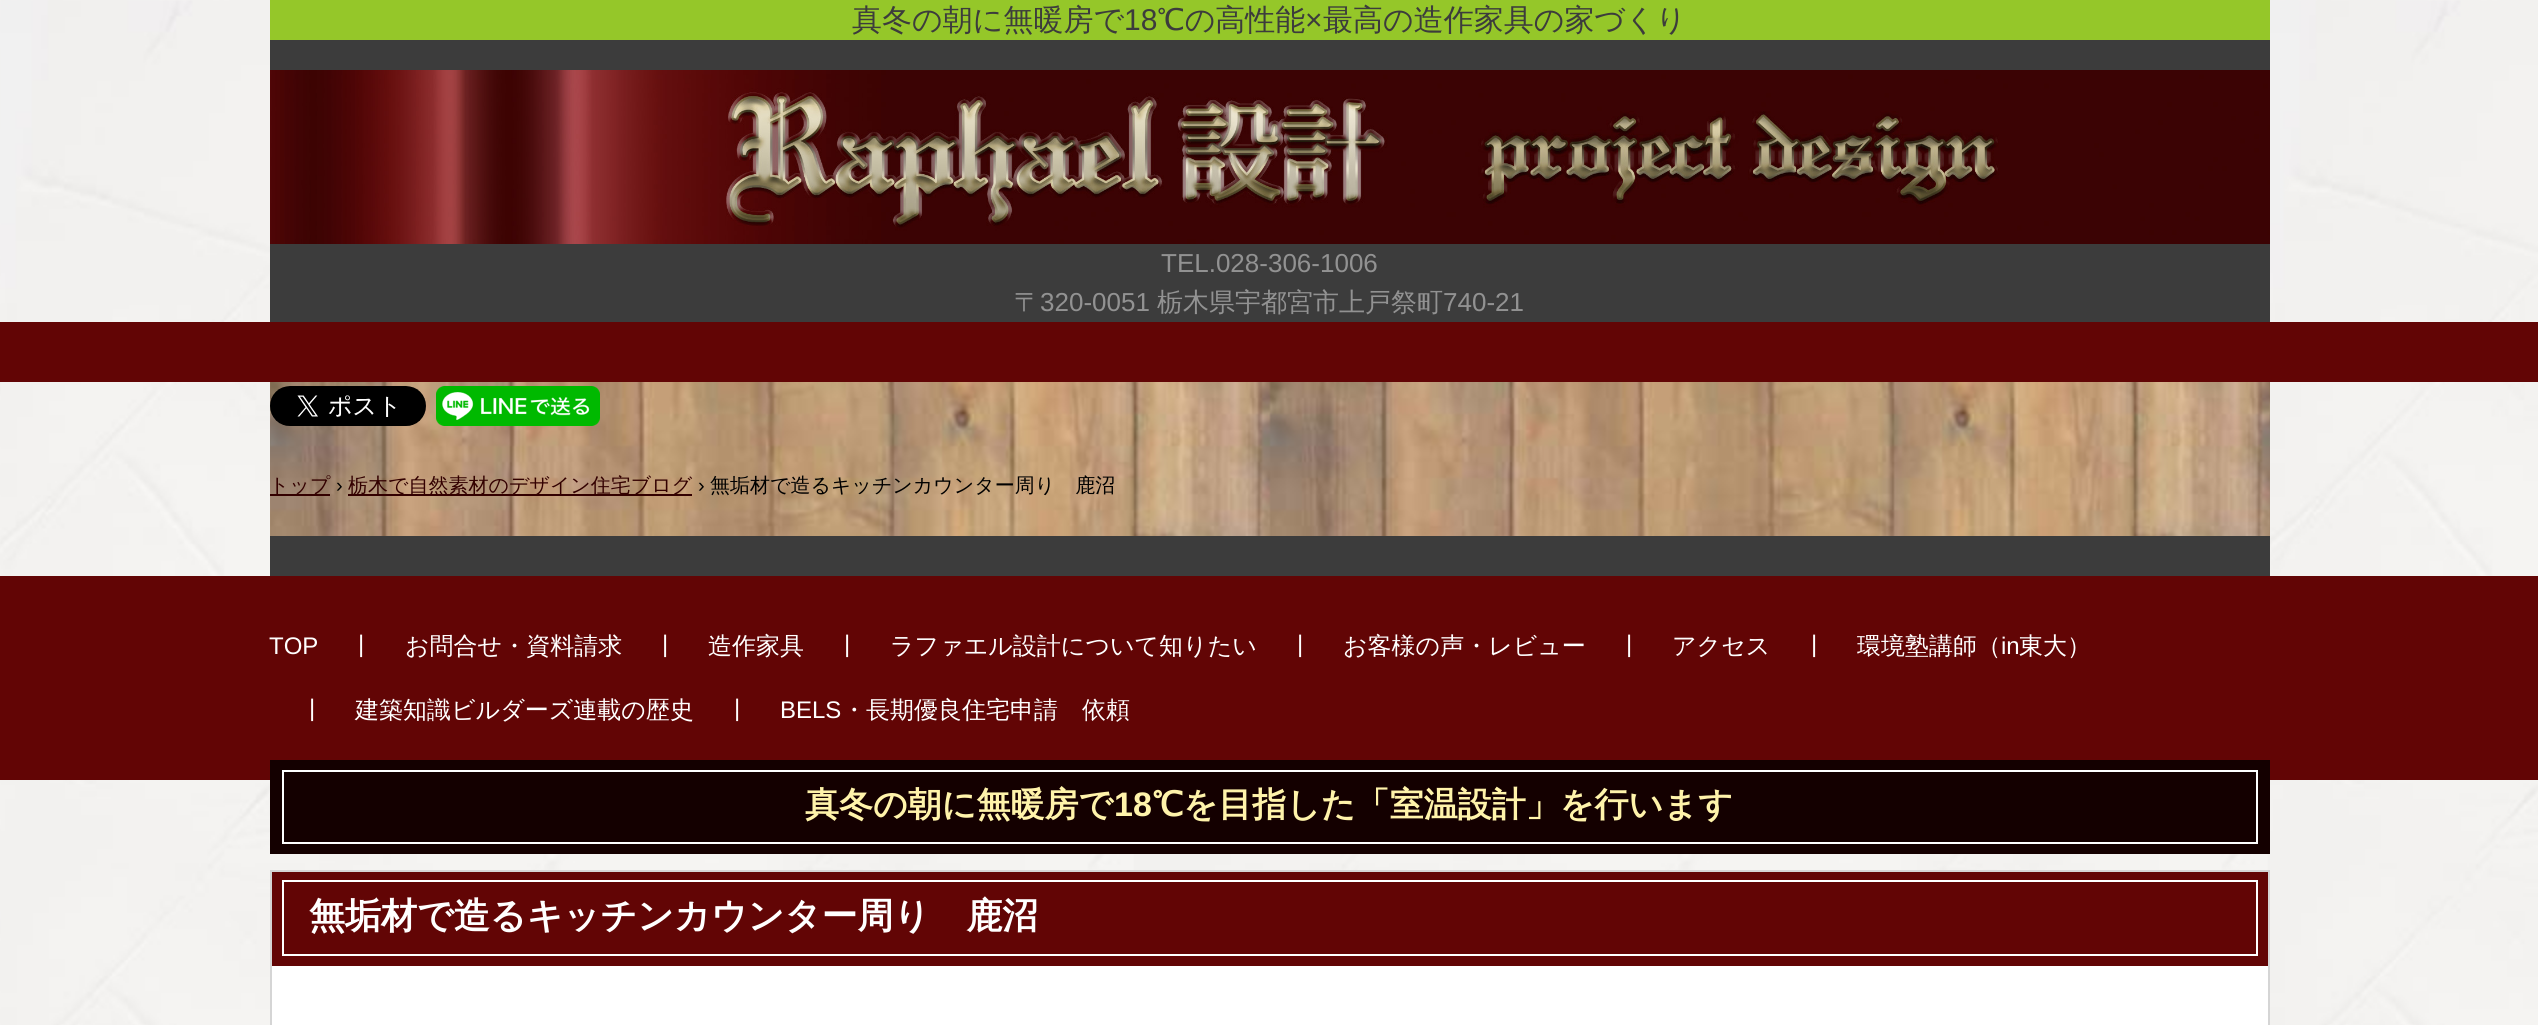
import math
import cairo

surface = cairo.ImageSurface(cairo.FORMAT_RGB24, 2538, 1025)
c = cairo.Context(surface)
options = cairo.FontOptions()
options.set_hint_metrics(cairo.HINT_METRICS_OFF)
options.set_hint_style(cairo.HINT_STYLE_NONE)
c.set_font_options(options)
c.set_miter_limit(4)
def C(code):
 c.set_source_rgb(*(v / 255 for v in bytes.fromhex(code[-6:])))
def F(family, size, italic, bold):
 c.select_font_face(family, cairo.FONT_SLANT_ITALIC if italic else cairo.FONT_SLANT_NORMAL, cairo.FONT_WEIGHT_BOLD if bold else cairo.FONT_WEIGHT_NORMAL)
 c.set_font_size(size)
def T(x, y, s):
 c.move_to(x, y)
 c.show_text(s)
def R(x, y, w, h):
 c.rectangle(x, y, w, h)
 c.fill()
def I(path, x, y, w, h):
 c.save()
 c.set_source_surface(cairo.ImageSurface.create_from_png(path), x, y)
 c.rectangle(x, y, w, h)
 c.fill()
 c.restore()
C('ffffff')
c.paint()
I('1.png',0,0,2538,1025)
C('3c3c3c')
R(270,40,2000,282)
C('95c729')
R(270,0,2000,40)
F('WenQuanYi Zen Hei Medium',30,0,0)
C('3c3c3c')
T(852,30,'真冬の朝に無暖房で')
F('Liberation Sans',30,0,0)
T(1124,30,'18')
F('WenQuanYi Zen Hei Medium',30,0,0)
T(1157,30,'℃の高性能')
F('Liberation Sans',30,0,0)
T(1305,30,'×')
F('WenQuanYi Zen Hei Medium',30,0,0)
T(1323,30,'最高の造作家具の家づくり')
I('2.png',270,70,2000,174)
F('Liberation Sans',26,0,0)
C('929292')
T(1161,272,'TEL.028-306-1006')
F('WenQuanYi Zen Hei Medium',26,0,0)
T(1014,311,'〒')
F('Liberation Sans',26,0,0)
T(1040,311,'320-0051')
F('WenQuanYi Zen Hei Medium',26,0,0)
T(1157,311,'栃木県宇都宮市上戸祭町')
F('Liberation Sans',26,0,0)
T(1443,311,'740-21')
C('620505')
R(0,322,2538,60)
I('3.png',270,382,2000,154)
I('4.png',270,386,156,40)
I('5.png',436,386,164,40)
C('330000')
R(270,494,60,2)
F('WenQuanYi Zen Hei Medium',20,0,0)
T(269,492,'トップ')
F('Liberation Sans',20,0,0)
C('000000')
T(336,492,'›')
C('330000')
R(348,494,344,2)
F('WenQuanYi Zen Hei Medium',20,0,0)
T(348,492,'栃木で自然素材のデザイン住宅ブログ')
F('Liberation Sans',20,0,0)
C('000000')
T(698,492,'›')
F('WenQuanYi Zen Hei Medium',20,0,0)
T(710,492,'無垢材で造るキッチンカウンター周り　鹿沼')
C('3c3c3c')
R(270,536,2000,40)
C('620505')
R(0,576,2538,204)
F('Liberation Sans',24,0,0)
C('ffffff')
T(269,654,'TOP')
T(358,652,'|')
F('WenQuanYi Zen Hei Medium',24,0,0)
T(405,654,'お問合せ・資料請求')
F('Liberation Sans',24,0,0)
T(662,652,'|')
F('WenQuanYi Zen Hei Medium',24,0,0)
T(708,654,'造作家具')
F('Liberation Sans',24,0,0)
T(844,652,'|')
F('WenQuanYi Zen Hei Medium',24,0,0)
T(890,654,'ラファエル設計について知りたい')
F('Liberation Sans',24,0,0)
T(1297,652,'|')
F('WenQuanYi Zen Hei Medium',24,0,0)
T(1343,654,'お客様の声・レビュー')
F('Liberation Sans',24,0,0)
T(1626,652,'|')
F('WenQuanYi Zen Hei Medium',24,0,0)
T(1672,654,'アクセス')
F('Liberation Sans',24,0,0)
T(1811,652,'|')
F('WenQuanYi Zen Hei Medium',24,0,0)
T(1857,654,'環境塾講師（')
F('Liberation Sans',24,0,0)
T(2001,654,'in')
F('WenQuanYi Zen Hei Medium',24,0,0)
T(2019,654,'東大）')
F('Liberation Sans',24,0,0)
T(309,716,'|')
F('WenQuanYi Zen Hei Medium',24,0,0)
T(355,718,'建築知識ビルダーズ連載の歴史')
F('Liberation Sans',24,0,0)
T(734,716,'|')
T(780,718,'BELS')
F('WenQuanYi Zen Hei Medium',24,0,0)
T(842,718,'・長期優良住宅申請　依頼')
C('140000')
R(270,760,2000,94)
c.rectangle(283,771,1974,72)
C('ffffff')
c.stroke()
F('WenQuanYi Zen Hei',34,0,1)
C('fff3aa')
T(805,816,'真冬の朝に無暖房で')
F('Liberation Sans',34,0,1)
T(1114,816,'18')
F('WenQuanYi Zen Hei',34,0,1)
T(1152,816,'℃を目指した「室温設計」を行います')
C('ffffff')
R(272,966,1996,59)
c.rectangle(271,871,1998,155)
C('d5d5d5')
c.stroke()
C('620505')
R(272,872,1996,94)
c.rectangle(283,881,1974,74)
C('ffffff')
c.stroke()
F('WenQuanYi Zen Hei',36,0,1)
T(309,928,'無垢材で造るキッチンカウンター周り　鹿沼')
surface.write_to_png('o.png')
